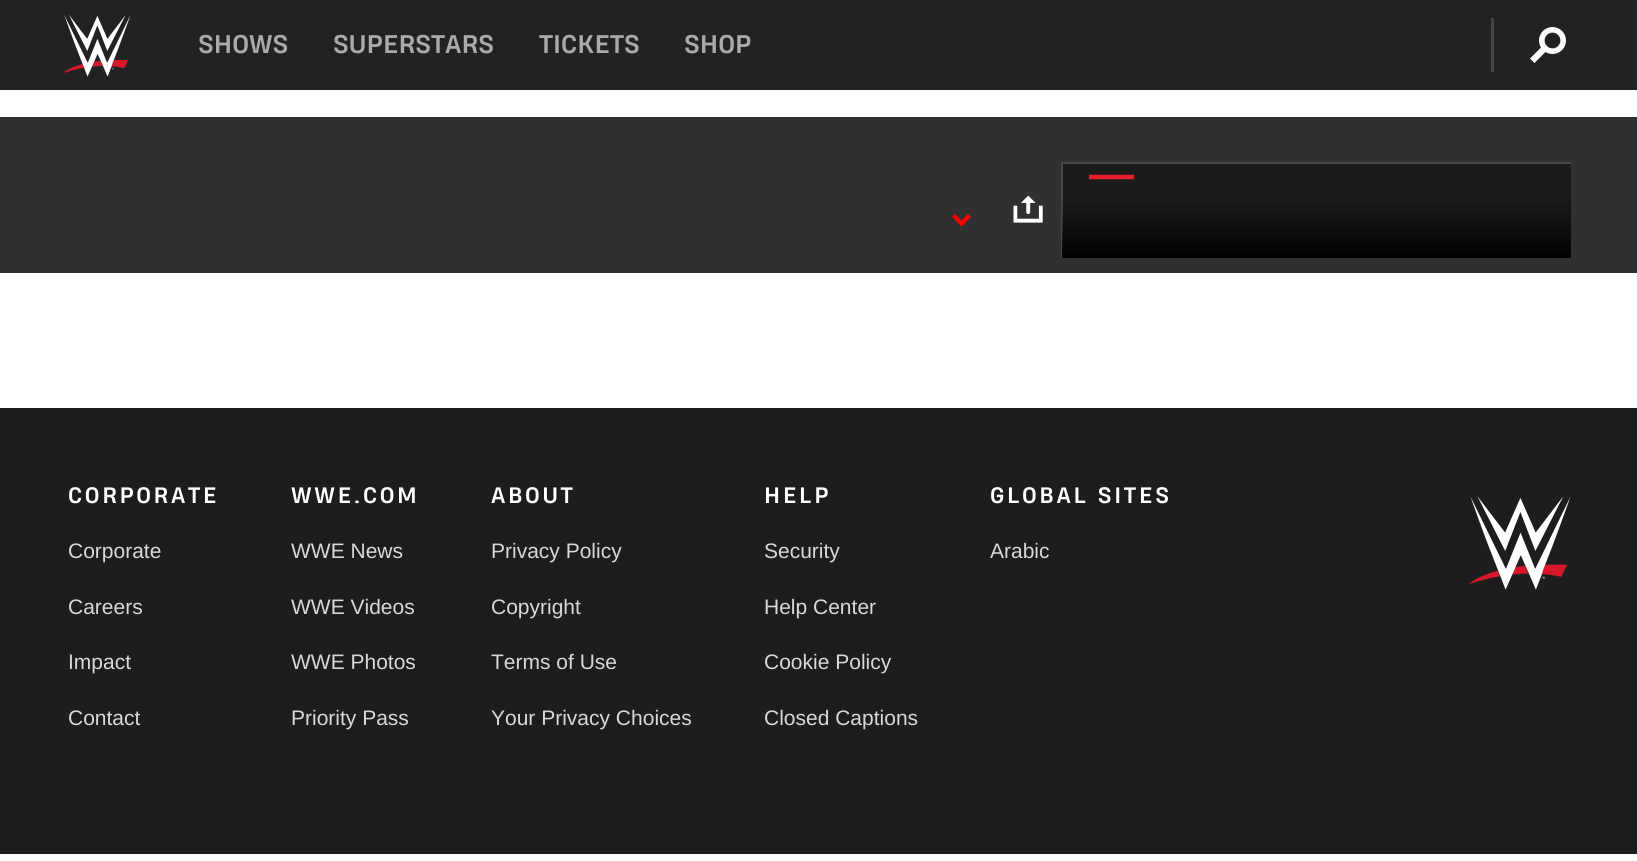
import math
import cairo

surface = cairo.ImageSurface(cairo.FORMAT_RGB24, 1637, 861)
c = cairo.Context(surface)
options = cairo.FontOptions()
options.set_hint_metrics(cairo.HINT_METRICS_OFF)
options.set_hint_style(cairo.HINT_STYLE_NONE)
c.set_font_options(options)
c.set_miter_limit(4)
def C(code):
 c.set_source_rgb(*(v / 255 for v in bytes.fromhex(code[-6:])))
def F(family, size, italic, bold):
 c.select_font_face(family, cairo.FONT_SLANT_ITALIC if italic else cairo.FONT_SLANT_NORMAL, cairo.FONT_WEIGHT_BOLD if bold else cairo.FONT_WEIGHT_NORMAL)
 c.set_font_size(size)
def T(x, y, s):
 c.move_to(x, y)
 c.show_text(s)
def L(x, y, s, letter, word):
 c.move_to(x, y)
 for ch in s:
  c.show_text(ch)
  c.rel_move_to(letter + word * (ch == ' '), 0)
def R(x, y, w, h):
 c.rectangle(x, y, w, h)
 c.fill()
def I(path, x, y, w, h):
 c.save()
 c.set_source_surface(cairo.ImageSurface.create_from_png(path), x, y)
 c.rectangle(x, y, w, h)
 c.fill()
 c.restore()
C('ffffff')
c.paint()
C('222222')
R(0,0,1637,90)
I('1.png',63,15,68,62)
F('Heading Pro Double',24,0,1)
C('aaaaaa')
T(198,53,'SHOWS')
T(333,53,'SUPERSTARS')
T(539,53,'TICKETS')
T(684,53,'SHOP')
C('444444')
R(1491,18,3,54)
I('2.png',1530,27,36,36)
C('303030')
R(0,117,1637,156)
C('ff0000')
c.new_path()
c.move_to(968,214)
c.line_to(971,217)
c.line_to(961.5,226.5)
c.line_to(958.5,223.5)
c.close_path()
c.fill()
c.new_path()
c.move_to(955,214)
c.line_to(964.5,223.5)
c.line_to(961.5,226.5)
c.line_to(952,217)
c.close_path()
c.fill()
I('3.png',1013,195,30,28)
C('1b1b1b')
R(1063,164,508,94)
C('474747')
R(1061,162,2,96)
R(1062,162,509,2)
c.save()
c.rectangle(1089,173,45,7)
c.clip()
c.new_path()
c.move_to(1019,177)
c.line_to(1154,177)
C('e7202f')
c.set_line_width(4.5)
c.stroke()
c.restore()
gradient = cairo.LinearGradient(1316,198,1316,258)
gradient.add_color_stop_rgba(0,0,0,0,0)
gradient.add_color_stop_rgba(1,0,0,0,.95)
c.set_source(gradient)
R(1062,200,509,58)
C('1d1d1d')
R(0,408,1637,446)
F('Heading Pro Double',21,0,1)
C('ffffff')
L(68,503,'CORPORATE',2.6,0)
F('Liberation Sans',21,0,0)
C('d8d8d8')
T(68,558,'Corporate')
T(68,614,'Careers')
T(68,669,'Impact')
T(68,725,'Contact')
F('Heading Pro Double',21,0,1)
C('ffffff')
L(291,503,'WWE.COM',2.6,0)
F('Liberation Sans',21,0,0)
C('d8d8d8')
T(291,558,'WWE News')
T(291,614,'WWE Videos')
T(291,669,'WWE Photos')
T(291,725,'Priority Pass')
F('Heading Pro Double',21,0,1)
C('ffffff')
L(491,503,'ABOUT',2.6,0)
F('Liberation Sans',21,0,0)
C('d8d8d8')
T(491,558,'Privacy Policy')
T(491,614,'Copyright')
T(491,669,'Terms of Use')
T(491,725,'Your Privacy Choices')
F('Heading Pro Double',21,0,1)
C('ffffff')
L(764,503,'HELP',2.6,0)
F('Liberation Sans',21,0,0)
C('d8d8d8')
T(764,558,'Security')
T(764,614,'Help Center')
T(764,669,'Cookie Policy')
T(764,725,'Closed Captions')
F('Heading Pro Double',21,0,1)
C('ffffff')
L(990,503,'GLOBAL SITES',2.6,0)
F('Liberation Sans',21,0,0)
C('d8d8d8')
T(990,558,'Arabic')
I('4.png',1469,496,102,94)
surface.write_to_png('o.png')
